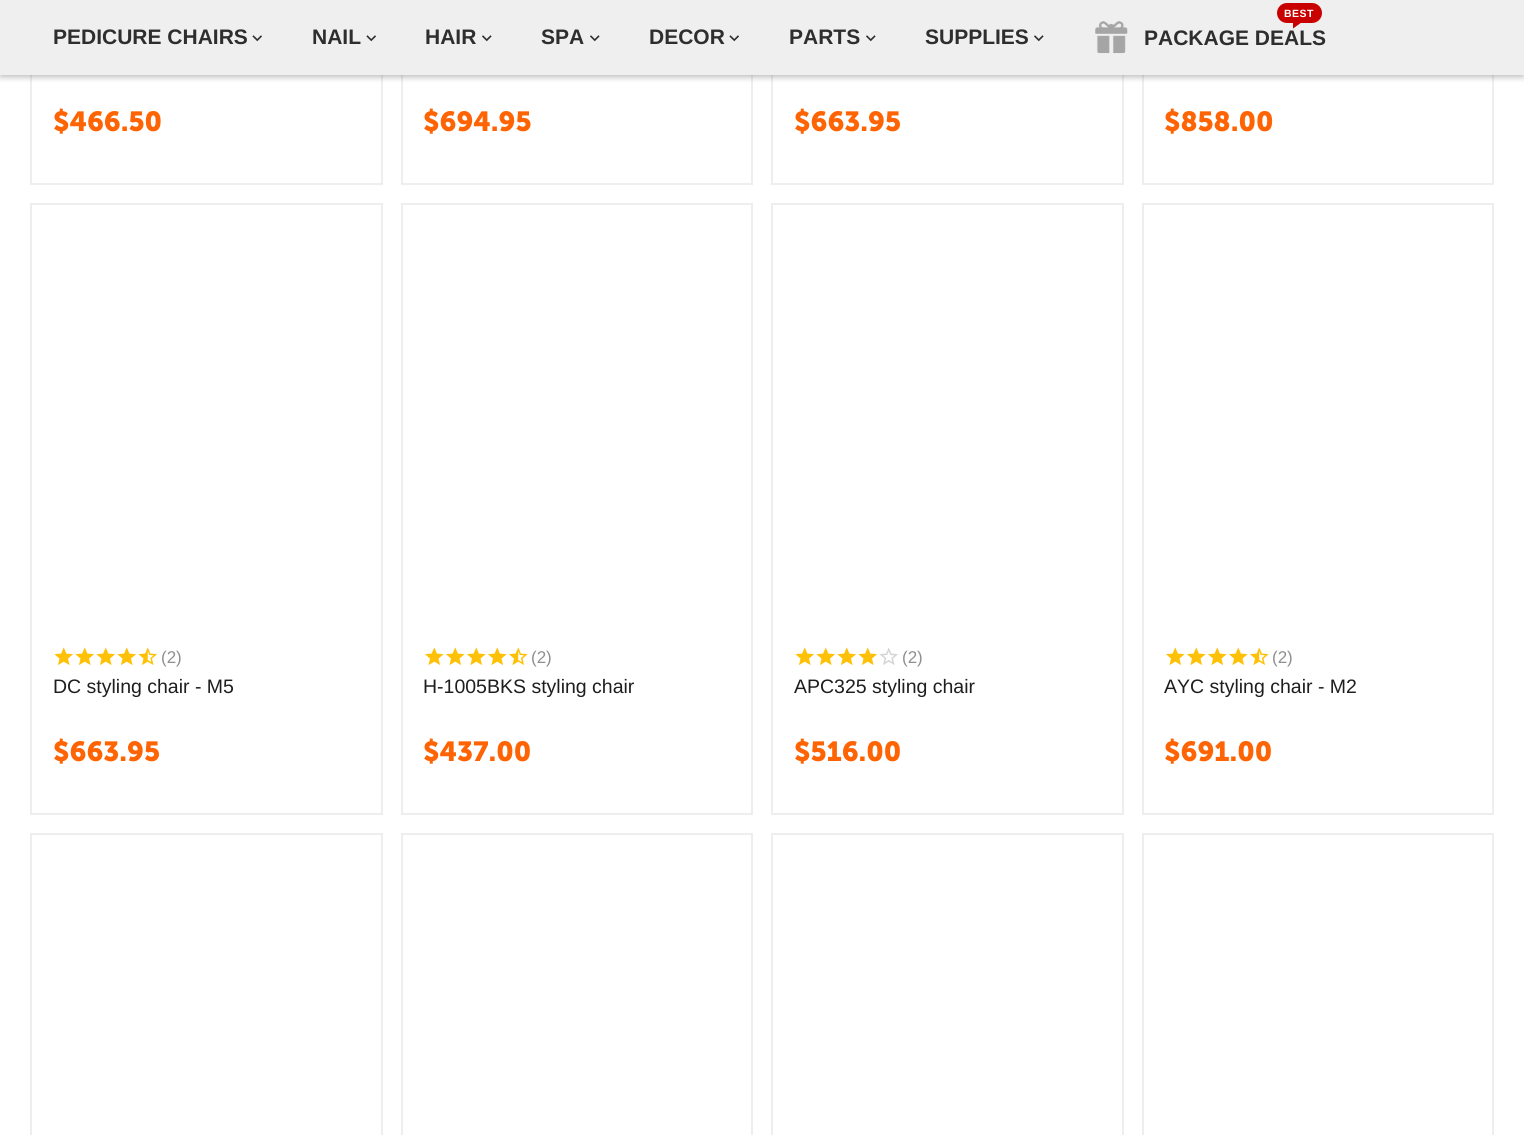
import math
import cairo

surface = cairo.ImageSurface(cairo.FORMAT_RGB24, 1524, 1135)
c = cairo.Context(surface)
options = cairo.FontOptions()
options.set_hint_metrics(cairo.HINT_METRICS_OFF)
options.set_hint_style(cairo.HINT_STYLE_NONE)
c.set_font_options(options)
c.set_miter_limit(4)
def C(code):
 c.set_source_rgb(*(v / 255 for v in bytes.fromhex(code[-6:])))
def F(family, size, italic, bold):
 c.select_font_face(family, cairo.FONT_SLANT_ITALIC if italic else cairo.FONT_SLANT_NORMAL, cairo.FONT_WEIGHT_BOLD if bold else cairo.FONT_WEIGHT_NORMAL)
 c.set_font_size(size)
def T(x, y, s):
 c.move_to(x, y)
 c.show_text(s)
def L(x, y, s, letter, word):
 c.move_to(x, y)
 for ch in s:
  c.show_text(ch)
  c.rel_move_to(letter + word * (ch == ' '), 0)
def R(x, y, w, h):
 c.rectangle(x, y, w, h)
 c.fill()
def Q(x, y, w, h, r):
 c.new_sub_path()
 for i, (u, v) in enumerate([(x + w - r, y + h - r), (x + r, y + h - r), (x + r, y + r), (x + w - r, y + r)]):
  c.arc(u, v, r, i * math.pi / 2, (i + 1) * math.pi / 2)
 c.close_path()
def S(x, y, w, h, r, blur, alpha):
 c.push_group_with_content(cairo.CONTENT_ALPHA)
 c.set_operator(cairo.OPERATOR_SOURCE)
 for i in range(15, -16, -2):
  e = blur * i / 6
  if min(w, h) + 2 * e > 0:
   c.set_source_rgba(0, 0, 0, alpha * math.erfc((i - 1) / 8.5) / 2)
   Q(x - e, y - e, w + 2 * e, h + 2 * e, max(0, min(r + e + blur * .6, min(w, h) / 2 + e)))
   c.fill()
 c.mask(c.pop_group())
def I(path, x, y, w, h):
 c.save()
 c.set_source_surface(cairo.ImageSurface.create_from_png(path), x, y)
 c.rectangle(x, y, w, h)
 c.fill()
 c.restore()
C('ffffff')
c.paint()
c.rectangle(31,-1,351,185)
C('eeeeee')
c.stroke()
c.rectangle(402,-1,350,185)
c.stroke()
c.rectangle(772,-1,351,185)
c.stroke()
c.rectangle(1143,-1,350,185)
c.stroke()
C('000000')
S(0,5,1524,75,0,2,.1)
S(0,2,1524,75,0,1,.1)
C('efefef')
R(0,0,1524,75)
F('Liberation Sans',21,0,1)
C('2e2e2e')
T(53,44,'PEDICURE CHAIRS')
I('1.png',252,35,10,7)
T(312,44,'NAIL')
I('1.png',366,35,10,7)
T(425,44,'HAIR')
I('2.png',482,35,10,7)
T(541,44,'SPA')
I('2.png',590,35,10,7)
T(649,44,'DECOR')
I('1.png',729,35,10,7)
T(789,44,'PARTS')
I('2.png',866,35,10,7)
T(925,44,'SUPPLIES')
I('2.png',1034,35,10,7)
I('3.png',1095,21,33,33)
C('c80000')
c.new_path()
c.move_to(1293,21)
c.line_to(1303.5,21)
c.line_to(1293,28.5)
c.close_path()
c.fill()
Q(1278,4,43,18,9)
c.fill_preserve()
c.stroke()
F('Liberation Sans',10.5,0,1)
C('ffffff')
L(1284,17,'BEST',.5,0)
F('Liberation Sans',21,0,1)
C('2e2e2e')
T(1144,45,'PACKAGE DEALS')
F('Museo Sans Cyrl',27.5,0,1)
C('ff6404')
T(53,131,'$466.50')
T(423,131,'$694.95')
T(794,131,'$663.95')
T(1164,131,'$858.00')
c.rectangle(31,204,351,610)
C('eeeeee')
c.stroke()
I('4.png',54,647,19,18)
I('4.png',75,647,19,18)
I('4.png',96,647,19,18)
I('4.png',117,647,19,18)
I('5.png',138,647,19,18)
F('Liberation Sans',17,0,0)
C('8f8f8f')
T(161,663,'(2)')
F('Liberation Sans',19.5,0,0)
C('1e1e1e')
T(53,693,'DC styling chair - M5')
F('Museo Sans Cyrl',27.5,0,1)
C('ff6404')
T(53,761,'$663.95')
c.rectangle(402,204,350,610)
C('eeeeee')
c.stroke()
I('6.png',425,647,19,18)
I('6.png',446,647,19,18)
I('6.png',467,647,19,18)
I('6.png',488,647,19,18)
I('7.png',509,647,19,18)
F('Liberation Sans',17,0,0)
C('8f8f8f')
T(531,663,'(2)')
F('Liberation Sans',19.5,0,0)
C('1e1e1e')
T(423,693,'H-1005BKS styling chair')
F('Museo Sans Cyrl',27.5,0,1)
C('ff6404')
T(423,761,'$437.00')
c.rectangle(772,204,351,610)
C('eeeeee')
c.stroke()
I('4.png',795,647,19,18)
I('4.png',816,647,19,18)
I('4.png',837,647,19,18)
I('4.png',858,647,19,18)
I('8.png',879,647,19,18)
F('Liberation Sans',17,0,0)
C('8f8f8f')
T(902,663,'(2)')
F('Liberation Sans',19.5,0,0)
C('1e1e1e')
T(794,693,'APC325 styling chair')
F('Museo Sans Cyrl',27.5,0,1)
C('ff6404')
T(794,761,'$516.00')
c.rectangle(1143,204,350,610)
C('eeeeee')
c.stroke()
I('6.png',1166,647,19,18)
I('6.png',1187,647,19,18)
I('6.png',1208,647,19,18)
I('6.png',1229,647,19,18)
I('7.png',1250,647,19,18)
F('Liberation Sans',17,0,0)
C('8f8f8f')
T(1272,663,'(2)')
F('Liberation Sans',19.5,0,0)
C('1e1e1e')
T(1164,693,'AYC styling chair - M2')
F('Museo Sans Cyrl',27.5,0,1)
C('ff6404')
T(1164,761,'$691.00')
c.rectangle(31,834,351,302)
C('eeeeee')
c.stroke()
c.rectangle(402,834,350,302)
c.stroke()
c.rectangle(772,834,351,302)
c.stroke()
c.rectangle(1143,834,350,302)
c.stroke()
surface.write_to_png('o.png')
